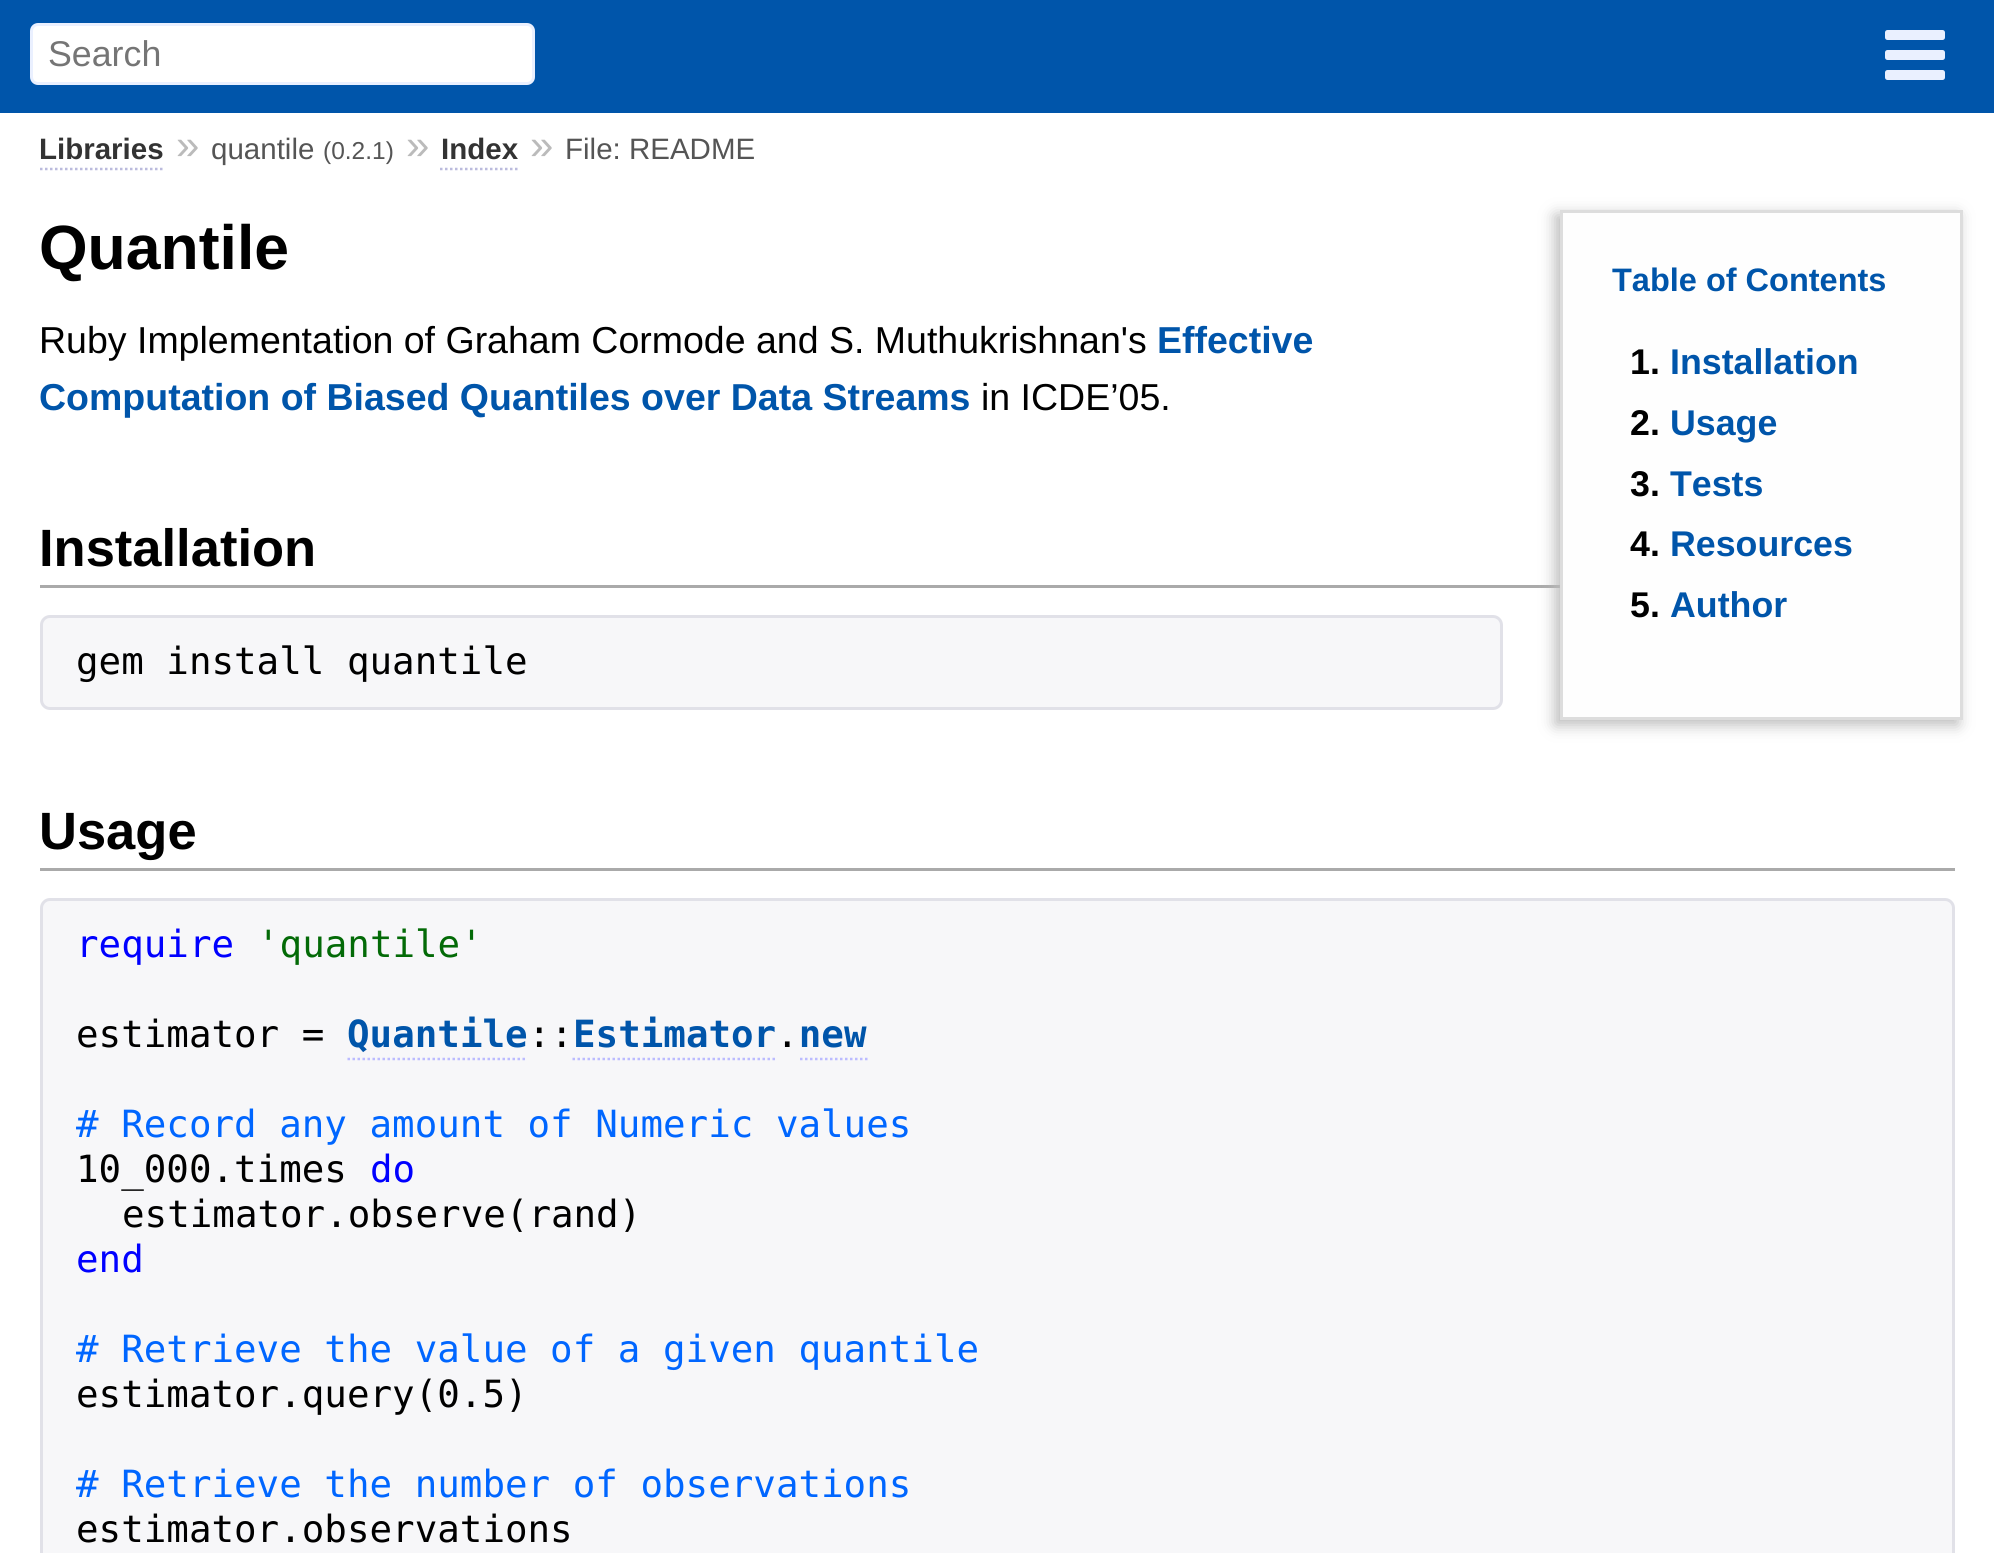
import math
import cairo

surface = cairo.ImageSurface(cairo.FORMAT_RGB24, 1994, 1553)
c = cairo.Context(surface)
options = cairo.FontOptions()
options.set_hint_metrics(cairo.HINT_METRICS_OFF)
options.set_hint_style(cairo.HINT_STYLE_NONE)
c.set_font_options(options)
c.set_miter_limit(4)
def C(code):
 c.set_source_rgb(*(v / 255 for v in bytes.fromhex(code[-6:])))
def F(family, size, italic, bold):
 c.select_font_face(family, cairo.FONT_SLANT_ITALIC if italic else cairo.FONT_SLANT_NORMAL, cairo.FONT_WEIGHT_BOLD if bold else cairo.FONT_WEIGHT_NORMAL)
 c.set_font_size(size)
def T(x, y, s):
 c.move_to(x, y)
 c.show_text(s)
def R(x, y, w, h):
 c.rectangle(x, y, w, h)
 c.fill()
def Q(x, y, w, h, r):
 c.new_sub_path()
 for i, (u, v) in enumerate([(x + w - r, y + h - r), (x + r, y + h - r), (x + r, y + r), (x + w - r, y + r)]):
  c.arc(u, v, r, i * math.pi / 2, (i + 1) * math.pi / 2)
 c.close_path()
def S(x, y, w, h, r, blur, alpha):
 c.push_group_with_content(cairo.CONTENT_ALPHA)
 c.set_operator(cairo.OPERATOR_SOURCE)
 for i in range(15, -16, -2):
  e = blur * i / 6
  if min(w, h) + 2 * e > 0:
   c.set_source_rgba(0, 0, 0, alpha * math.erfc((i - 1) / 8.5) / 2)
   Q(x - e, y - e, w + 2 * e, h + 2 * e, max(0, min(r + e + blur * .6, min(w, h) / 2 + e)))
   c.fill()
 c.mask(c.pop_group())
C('ffffff')
c.paint()
C('0055aa')
R(0,0,1994,113)
C('ffffff')
Q(31.5,24.5,502,59,6.5)
c.fill_preserve()
C('eaf0ff')
c.set_line_width(3)
c.stroke()
F('Liberation Sans',35.75,0,0)
C('757575')
T(48,66,'Search')
C('eaf0ff')
Q(1885,30,60,10,2.5)
c.fill()
Q(1885,50,60,10,2.5)
c.fill()
Q(1885,70,60,10,2.5)
c.fill()
F('Liberation Sans',29.5,0,1)
C('333333')
T(39,159,'Libraries')
c.new_path()
c.move_to(40,169)
c.line_to(165,169)
C('bbbbdd')
c.set_line_width(2.5)
c.set_dash([2.5,2.5])
c.stroke()
F('Liberation Sans',42,0,0)
C('bbbbbb')
T(176,159,'»')
F('Liberation Sans',29.5,0,0)
C('555555')
T(211,159,'quantile')
F('Liberation Sans',24.5,0,0)
T(323,159,'(0.2.1)')
F('Liberation Sans',42,0,0)
C('bbbbbb')
T(406,159,'»')
F('Liberation Sans',29.5,0,1)
C('333333')
T(441,159,'Index')
c.new_path()
c.move_to(440,169)
c.line_to(517.5,169)
C('bbbbdd')
c.stroke()
F('Liberation Sans',42,0,0)
C('bbbbbb')
T(530,159,'»')
F('Liberation Sans',29.5,0,0)
C('555555')
T(565,159,'File: README')
F('Liberation Sans',62.5,0,1)
C('000000')
T(39,269,'Quantile')
F('Liberation Sans',37.5,0,0)
T(39,353,'Ruby Implementation of Graham Cormode and S. Muthukrishnan\'s')
F('Liberation Sans',37.5,0,1)
C('0055aa')
T(1157,353,'Effective')
T(39,410,'Computation of Biased Quantiles over Data Streams')
F('Liberation Sans',37.5,0,0)
C('000000')
T(981,410,'in ICDE’05.')
C('aaaaaa')
R(40,585,1520,3)
F('Liberation Sans',52.5,0,1)
C('000000')
T(39,566,'Installation')
C('f7f7f9')
Q(41.5,616.5,1460,92,8.5)
c.fill_preserve()
C('e1e1e8')
c.set_line_width(3)
c.set_dash([])
c.stroke()
F('DejaVu Sans Mono',37.5,0,0)
C('000000')
T(76,674,'gem install quantile')
C('aaaaaa')
R(40,868,1915,3)
F('Liberation Sans',52.5,0,1)
C('000000')
T(39,849,'Usage')
C('f7f7f9')
Q(41.5,899.5,1912,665,8.5)
c.fill_preserve()
C('e1e1e8')
c.stroke()
F('DejaVu Sans Mono',37.5,0,0)
C('0000ff')
T(76,957,'require')
C('036a07')
T(257,957,'\'quantile\'')
C('000000')
T(76,1047,'estimator =')
F('DejaVu Sans Mono',37.5,0,1)
C('0055aa')
T(347,1047,'Quantile')
c.new_path()
c.move_to(347.5,1059)
c.line_to(527.5,1059)
C('bbbbff')
c.set_line_width(2.5)
c.set_dash([2.5,2.5])
c.stroke()
F('DejaVu Sans Mono',37.5,0,0)
C('000000')
T(528,1047,'::')
F('DejaVu Sans Mono',37.5,0,1)
C('0055aa')
T(573,1047,'Estimator new')
F('DejaVu Sans Mono',37.5,0,0)
C('000000')
T(776,1047,'.')
c.new_path()
c.move_to(572.5,1059)
c.line_to(777.5,1059)
C('bbbbff')
c.stroke()
c.new_path()
c.move_to(800,1059)
c.line_to(867.5,1059)
c.stroke()
C('0066ff')
T(76,1137,'# Record any amount of Numeric values')
C('000000')
T(76,1182,'10_000.times')
C('0000ff')
T(370,1182,'do')
C('000000')
T(122,1227,'estimator.observe(rand)')
C('0000ff')
T(76,1272,'end')
C('0066ff')
T(76,1362,'# Retrieve the value of a given quantile')
C('000000')
T(76,1407,'estimator.query(0.5)')
C('0066ff')
T(76,1497,'# Retrieve the number of observations')
C('000000')
T(76,1542,'estimator.observations')
C('bbbbbb')
S(1555,215,403,510,0,7.5,1)
C('fefefe')
c.rectangle(1561.5,211.5,400,507)
c.fill_preserve()
C('dddddd')
c.set_line_width(3)
c.set_dash([])
c.stroke()
F('Liberation Sans',32.5,0,1)
C('0055aa')
T(1612,291,'Table of Contents')
F('Liberation Sans',35.75,0,1)
C('000000')
T(1630,374,'1.')
C('0055aa')
T(1670,374,'Installation')
C('000000')
T(1630,435,'2.')
C('0055aa')
T(1670,435,'Usage')
C('000000')
T(1630,496,'3.')
C('0055aa')
T(1670,496,'Tests')
C('000000')
T(1630,556,'4.')
C('0055aa')
T(1670,556,'Resources')
C('000000')
T(1630,617,'5.')
C('0055aa')
T(1670,617,'Author')
surface.write_to_png('o.png')
